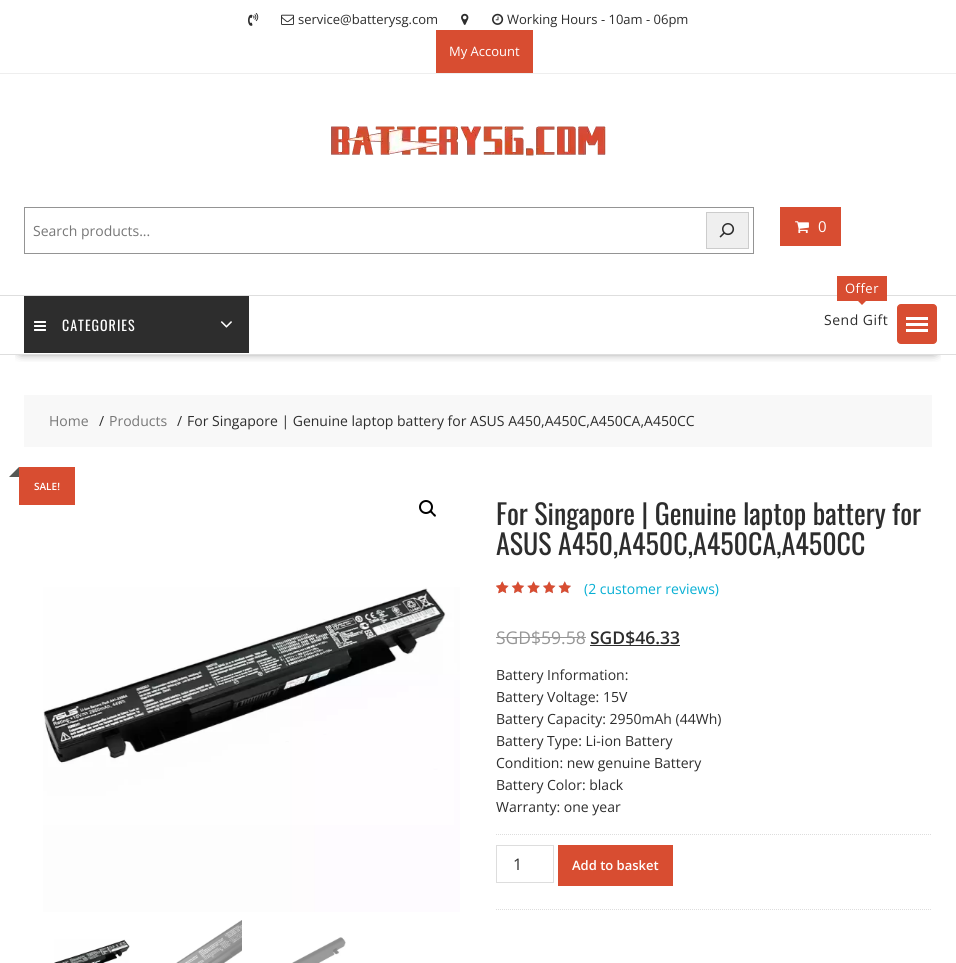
import math
import cairo

surface = cairo.ImageSurface(cairo.FORMAT_RGB24, 956, 963)
c = cairo.Context(surface)
options = cairo.FontOptions()
options.set_hint_metrics(cairo.HINT_METRICS_OFF)
options.set_hint_style(cairo.HINT_STYLE_NONE)
c.set_font_options(options)
c.set_miter_limit(4)
def C(code):
 c.set_source_rgb(*(v / 255 for v in bytes.fromhex(code[-6:])))
def F(family, size, italic, bold):
 c.select_font_face(family, cairo.FONT_SLANT_ITALIC if italic else cairo.FONT_SLANT_NORMAL, cairo.FONT_WEIGHT_BOLD if bold else cairo.FONT_WEIGHT_NORMAL)
 c.set_font_size(size)
def T(x, y, s):
 c.move_to(x, y)
 c.show_text(s)
def L(x, y, s, letter, word):
 c.move_to(x, y)
 for ch in s:
  c.show_text(ch)
  c.rel_move_to(letter + word * (ch == ' '), 0)
def R(x, y, w, h):
 c.rectangle(x, y, w, h)
 c.fill()
def Q(x, y, w, h, r):
 c.new_sub_path()
 for i, (u, v) in enumerate([(x + w - r, y + h - r), (x + r, y + h - r), (x + r, y + r), (x + w - r, y + r)]):
  c.arc(u, v, r, i * math.pi / 2, (i + 1) * math.pi / 2)
 c.close_path()
def S(x, y, w, h, r, blur, alpha):
 c.push_group_with_content(cairo.CONTENT_ALPHA)
 c.set_operator(cairo.OPERATOR_SOURCE)
 for i in range(15, -16, -2):
  e = blur * i / 6
  if min(w, h) + 2 * e > 0:
   c.set_source_rgba(0, 0, 0, alpha * math.erfc((i - 1) / 8.5) / 2)
   Q(x - e, y - e, w + 2 * e, h + 2 * e, max(0, min(r + e + blur * .6, min(w, h) / 2 + e)))
   c.fill()
 c.mask(c.pop_group())
def I(path, x, y, w, h):
 c.save()
 c.set_source_surface(cairo.ImageSurface.create_from_png(path), x, y)
 c.rectangle(x, y, w, h)
 c.fill()
 c.restore()
C('ffffff')
c.paint()
C('eeeeee')
R(0,73,956,1)
I('1.png',248,13,11,13)
I('2.png',281,14,13,11)
F('Open Sans',13,0,0)
C('2d2d2d')
T(298,24,'service@batterysg.com')
I('3.png',461,13,8,12)
I('4.png',492,13,12,12)
T(507,24,'Working Hours - 10am - 06pm')
C('d84d31')
R(436,30,97,43)
C('ffffff')
T(449,56,'My Account')
I('5.png',331,126,275,30)
c.rectangle(24.5,207.5,729,46)
C('949494')
c.set_line_width(1)
c.stroke()
F('Open Sans',14,0,0)
C('777777')
T(33,236,'Search products...')
C('efefef')
c.rectangle(706.5,212.5,42,36)
c.fill_preserve()
C('cccccc')
c.stroke()
I('6.png',719,223,16,15)
C('d84d31')
R(780,207,61,39)
I('7.png',795,221,14,13)
F('Open Sans',15,0,0)
C('ffffff')
T(818,232,'0')
c.save()
c.rectangle(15,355,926,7)
c.clip()
C('000000')
S(21,333,914,18,0,5.5,.75)
c.restore()
C('dedede')
R(0,295,956,1)
R(0,354,956,1)
C('2d2d2d')
R(24,296,225,57)
I('8.png',34,321,12,10)
F('Oswald',14,0,0)
C('ffffff')
L(62,331,'CATEGORIES',1,0)
I('9.png',220,321,12,7)
C('d84d31')
R(837,276,50,25)
F('Open Sans',13,0,0)
C('ffffff')
L(845,293,'Offer',.5,0)
C('d84d31')
c.new_path()
c.move_to(857,300)
c.line_to(867,300)
c.line_to(862,305)
c.close_path()
c.fill()
F('Open Sans',14,0,0)
C('2d2d2d')
L(824,325,'Send Gift',.5,0)
C('d84d31')
Q(897.5,304.5,39,39,3.5)
c.fill_preserve()
c.stroke()
C('ffffff')
R(906,329,22,3)
R(906,323,22,3)
R(906,317,22,3)
C('f8f8f8')
R(24,395,908,52)
C('777777')
T(49,426,'Home')
C('2d2d2d')
T(99,426,'/')
C('777777')
T(109,426,'Products')
C('2d2d2d')
T(177,426,'/')
T(187,426,'For Singapore | Genuine laptop battery for ASUS A450,A450C,A450CA,A450CC')
C('d84d31')
R(19,467,56,38)
C('565955')
c.new_path()
c.move_to(19,467)
c.line_to(19,477)
c.line_to(9,477)
c.close_path()
c.fill()
F('Open Sans SemiBold',10,0,0)
C('ffffff')
T(34,490,'SALE!')
c.new_path()
c.arc(426,507,6,0,2 * math.pi)
C('000000')
c.set_line_width(2)
c.stroke()
c.new_path()
c.move_to(430,510.5)
c.curve_to(431,509.5,433,512,433.5,513)
c.curve_to(434,513.5,437,515,435.5,516.5)
c.curve_to(434.5,517.5,433,515,432,514)
c.curve_to(431.5,513.5,429,512,430,510.5)
c.close_path()
c.fill()
I('10.png',43,587,417,325)
I('11.png',54,939,76,24)
I('12.png',176,920,66,43)
I('13.png',292,937,54,26)
F('Oswald',28,0,0)
C('2d2d2d')
T(496,525,'For Singapore | Genuine laptop battery for')
T(496,555,'ASUS A450,A450C,A450CA,A450CC')
I('14.png',496,581,75,12)
I('15.png',496,581,75,13)
I('16.png',496,582,6,12)
F('Open Sans',14,0,0)
C('07afd4')
T(584,594,'(2 customer reviews)')
F('Open Sans',17.5,0,0)
C('969696')
T(496,644,'SGD$59.58')
R(496,637,90,1)
F('Open Sans SemiBold',17.5,0,0)
C('2d2d2d')
T(590,644,'SGD$46.33')
R(590,645,90,1)
F('Open Sans',14,0,0)
T(496,680,'Battery Information:')
T(496,702,'Battery Voltage: 15V')
T(496,724,'Battery Capacity: 2950mAh (44Wh)')
T(496,746,'Battery Type: Li-ion Battery')
T(496,768,'Condition: new genuine Battery')
T(496,790,'Battery Color: black')
T(496,812,'Warranty: one year')
c.new_path()
c.move_to(496,834.5)
c.line_to(932,834.5)
C('dddddd')
c.set_line_width(1)
c.set_dash([1,1])
c.stroke()
c.new_path()
c.move_to(496,909.5)
c.line_to(932,909.5)
c.stroke()
c.rectangle(496.5,845.5,57,37)
c.set_dash([])
c.stroke()
F('Open Sans',16,0,0)
C('2d2d2d')
T(513,870,'1')
C('d84d31')
R(558,845,115,41)
F('Open Sans SemiBold',13,0,0)
C('ffffff')
T(572,870,'Add to basket')
surface.write_to_png('o.png')
